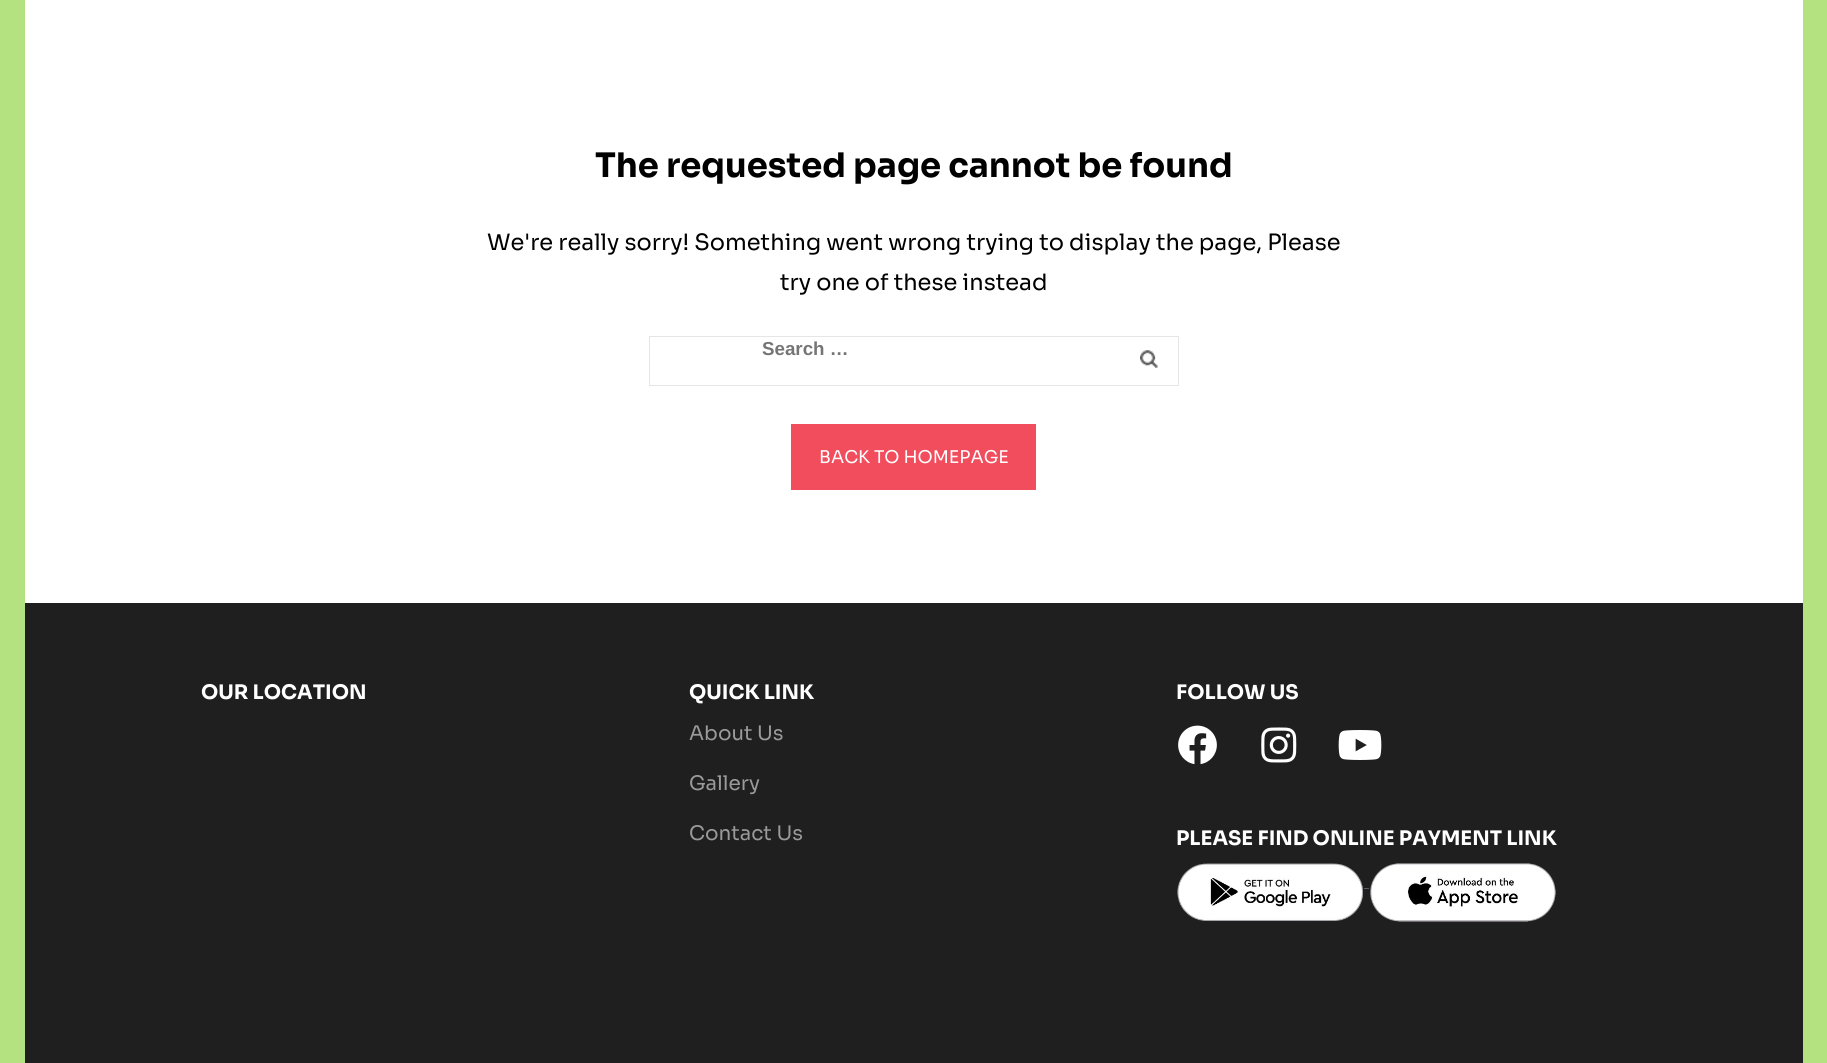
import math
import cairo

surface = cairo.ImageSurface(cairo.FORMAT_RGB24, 1827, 1063)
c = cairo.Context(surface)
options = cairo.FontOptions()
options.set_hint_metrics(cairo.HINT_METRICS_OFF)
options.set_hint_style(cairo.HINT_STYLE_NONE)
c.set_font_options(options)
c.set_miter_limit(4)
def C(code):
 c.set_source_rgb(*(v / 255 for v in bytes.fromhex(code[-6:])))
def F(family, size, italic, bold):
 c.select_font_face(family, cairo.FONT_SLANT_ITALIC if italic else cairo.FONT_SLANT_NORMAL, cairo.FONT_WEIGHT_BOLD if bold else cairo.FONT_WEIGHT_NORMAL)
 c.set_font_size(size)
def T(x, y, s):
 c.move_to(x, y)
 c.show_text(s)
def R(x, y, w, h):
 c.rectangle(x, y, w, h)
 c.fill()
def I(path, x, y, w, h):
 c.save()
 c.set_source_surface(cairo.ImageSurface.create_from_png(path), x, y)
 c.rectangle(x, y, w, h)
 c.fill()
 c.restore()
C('b5e281')
c.paint()
C('ffffff')
R(25,0,1778,603)
F('Sora',33.75,0,1)
C('000000')
T(595,177,'The requested page cannot be found')
F('Sora',22.5,0,0)
T(487,250,'We\'re really sorry! Something went wrong trying to display the page, Please')
T(780,290,'try one of these instead')
c.rectangle(649.5,336.5,529,49)
C('e6e6e6')
c.set_line_width(1)
c.stroke()
F('Liberation Sans',18.75,0,1)
C('757575')
T(762,355,'Search …')
I('1.png',1140,350,18,18)
C('f14d5d')
R(791,424,245,66)
F('Sora',17.5,0,0)
C('ffffff')
T(819,463,'BACK TO HOMEPAGE')
C('1f1f1f')
R(25,603,1778,460)
F('Sora',20,0,1)
C('ffffff')
T(201,699,'OUR LOCATION')
T(689,699,'QUICK LINK')
F('Sora',20,0,0)
C('9a9a9a')
T(689,740,'About Us')
T(689,790,'Gallery')
T(689,840,'Contact Us')
F('Sora',20,0,1)
C('ffffff')
T(1176,699,'FOLLOW US')
I('2.png',1178,725,39,40)
I('3.png',1261,727,36,36)
I('4.png',1338,730,44,30)
T(1176,845,'PLEASE FIND ONLINE PAYMENT LINK')
I('5.png',1177,863,186,58)
C('5d5d5d')
R(1364,888,5,1)
I('6.png',1370,863,186,59)
surface.write_to_png('o.png')
